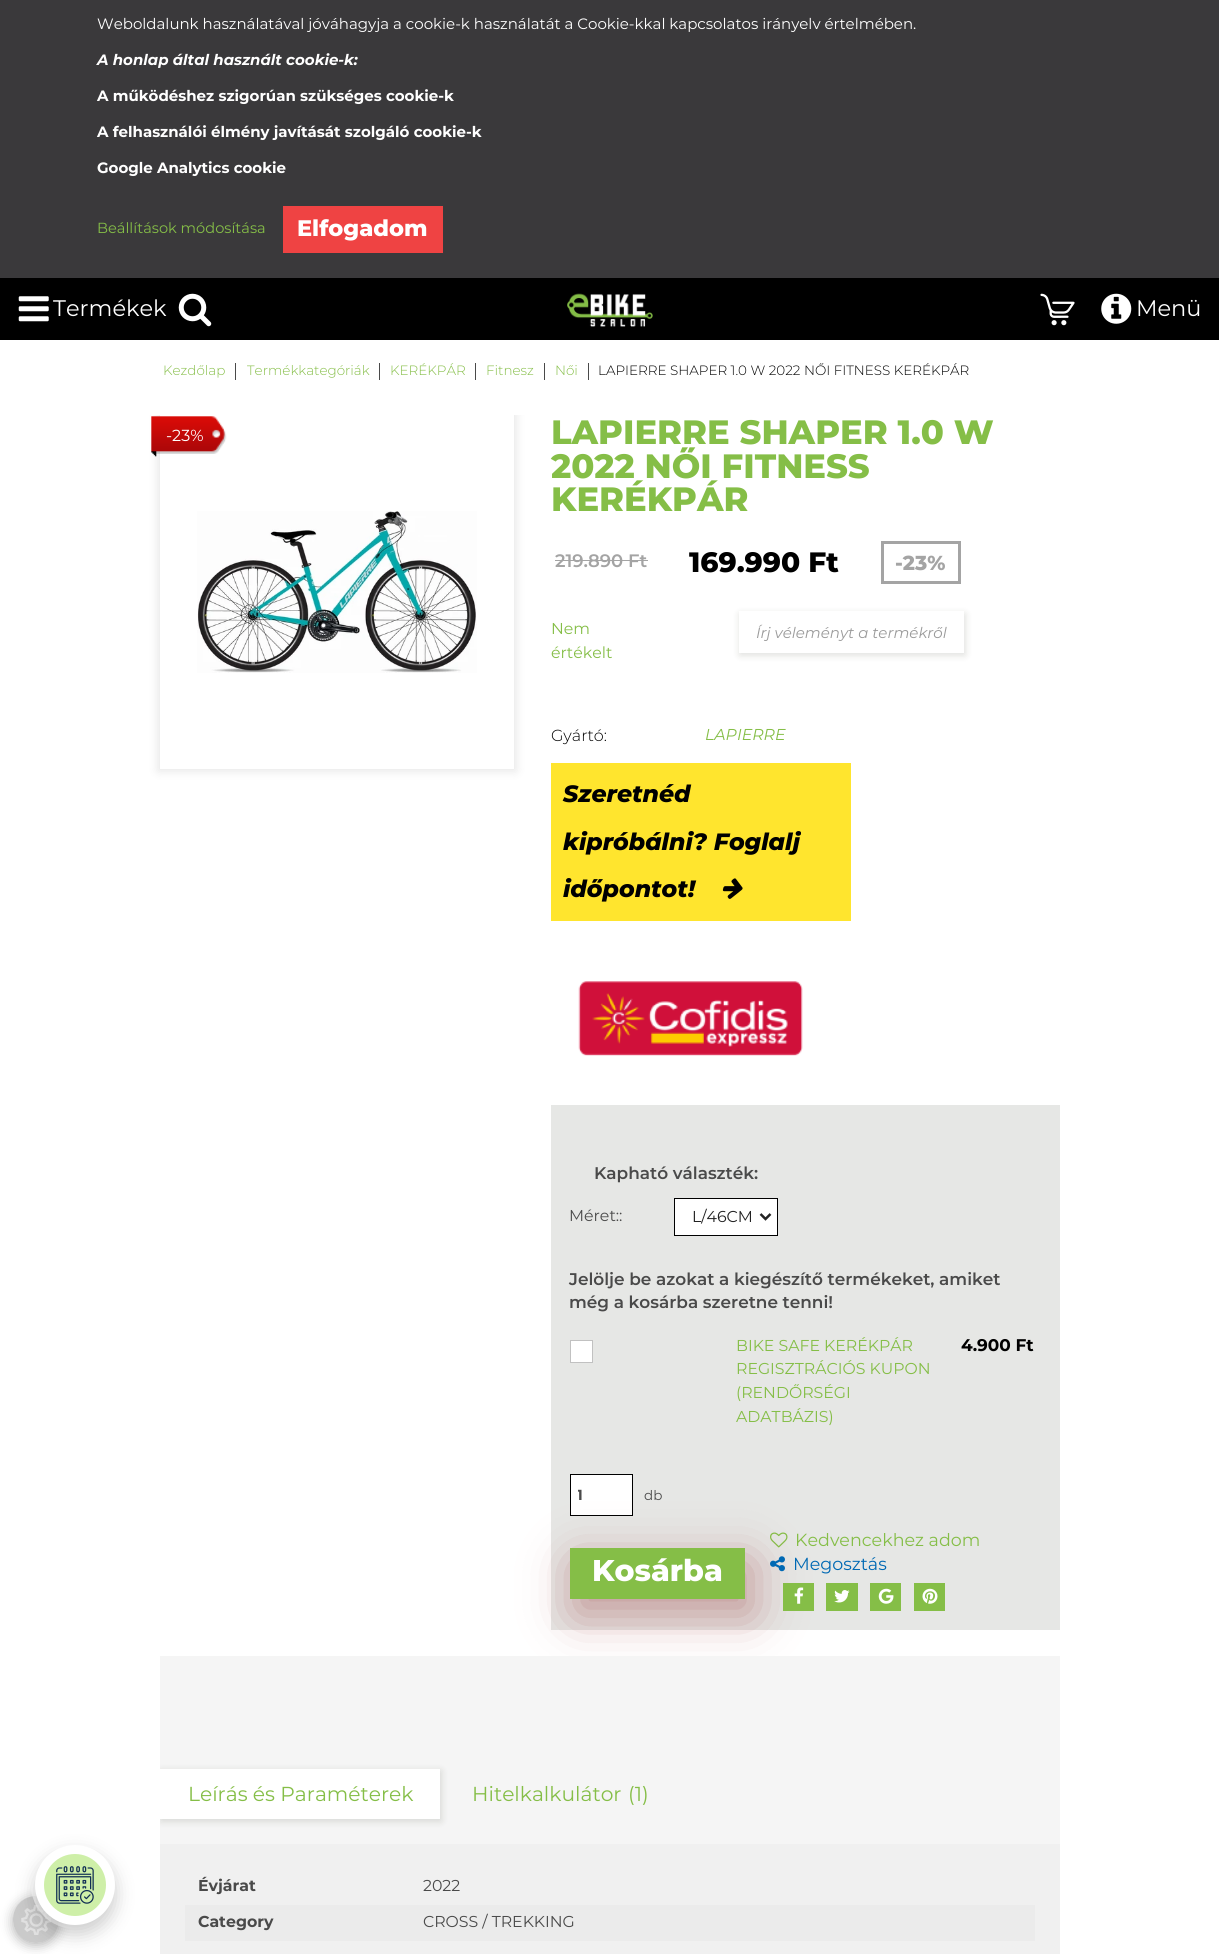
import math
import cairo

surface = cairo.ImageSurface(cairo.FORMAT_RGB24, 1219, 1954)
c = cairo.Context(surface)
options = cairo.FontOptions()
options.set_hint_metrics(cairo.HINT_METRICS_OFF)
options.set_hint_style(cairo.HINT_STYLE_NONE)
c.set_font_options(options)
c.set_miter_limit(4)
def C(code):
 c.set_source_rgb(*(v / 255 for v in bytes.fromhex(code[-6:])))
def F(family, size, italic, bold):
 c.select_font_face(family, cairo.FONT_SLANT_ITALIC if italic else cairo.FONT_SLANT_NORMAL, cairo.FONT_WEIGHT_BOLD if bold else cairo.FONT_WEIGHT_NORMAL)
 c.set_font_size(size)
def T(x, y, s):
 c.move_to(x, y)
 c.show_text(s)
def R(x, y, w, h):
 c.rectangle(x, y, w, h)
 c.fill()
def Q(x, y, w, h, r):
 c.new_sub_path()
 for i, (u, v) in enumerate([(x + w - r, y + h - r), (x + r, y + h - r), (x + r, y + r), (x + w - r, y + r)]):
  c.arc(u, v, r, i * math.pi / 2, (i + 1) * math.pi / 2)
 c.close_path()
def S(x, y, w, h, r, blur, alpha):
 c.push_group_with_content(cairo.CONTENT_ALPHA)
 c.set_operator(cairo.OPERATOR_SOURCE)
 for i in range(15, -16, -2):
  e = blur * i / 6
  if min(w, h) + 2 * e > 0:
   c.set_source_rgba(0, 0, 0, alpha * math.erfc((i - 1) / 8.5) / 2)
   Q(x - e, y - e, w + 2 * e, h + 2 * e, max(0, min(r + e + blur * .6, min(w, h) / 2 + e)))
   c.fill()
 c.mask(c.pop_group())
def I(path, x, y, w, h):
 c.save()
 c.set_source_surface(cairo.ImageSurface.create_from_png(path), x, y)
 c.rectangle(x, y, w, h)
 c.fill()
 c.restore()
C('ffffff')
c.paint()
C('3a393b')
R(0,0,1219,278)
F('Montserrat',15,0,0)
C('ffffff')
T(97,29,'Weboldalunk használatával jóváhagyja a cookie-k használatát a Cookie-kkal kapcsolatos irányelv értelmében.')
F('Montserrat',15,1,1)
T(97,65,'A honlap által használt cookie-k:')
F('Montserrat',15,0,1)
T(97,101,'A működéshez szigorúan szükséges cookie-k')
T(97,137,'A felhasználói élmény javítását szolgáló cookie-k')
T(97,173,'Google Analytics cookie')
F('Montserrat',14.6,0,0)
C('85be47')
T(97,233,'Beállítások módosítása')
C('ef4343')
R(283,206,160,47)
F('Montserrat ExtraBold',22.5,0,0)
C('ffffff')
T(297,236,'Elfogadom')
C('000000')
R(0,278,1219,62)
I('1.png',18,296,31,26)
F('Montserrat',22.5,0,0)
C('ffffff')
T(53,316,'Termékek')
I('2.png',178,293,34,34)
I('3.png',567,293,86,34)
I('4.png',1040,293,35,33)
I('5.png',1101,293,31,31)
T(1136,316,'Menü')
c.save()
c.set_fill_rule(cairo.FILL_RULE_EVEN_ODD)
c.new_path()
c.move_to(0,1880)
c.line_to(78,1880)
c.line_to(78,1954)
c.line_to(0,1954)
c.close_path()
c.move_to(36,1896)
c.curve_to(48.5,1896,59,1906.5,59,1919)
c.line_to(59,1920)
c.curve_to(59,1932.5,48.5,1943,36,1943)
c.curve_to(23.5,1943,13,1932.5,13,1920)
c.line_to(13,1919)
c.curve_to(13,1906.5,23.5,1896,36,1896)
c.close_path()
c.clip()
C('000000')
S(13,1899,46,46,23,6,.3)
c.restore()
c.set_source_rgba(0.306,0.306,0.306,0.3)
Q(13,1896,46,47,23)
c.fill()
I('7.png',21,1905,30,30)
c.set_source_rgba(1,1,1,0.7)
c.arc(75,1885,44,0,2 * math.pi)
c.fill()
C('000000')
S(34,1853,82,82,41,9,.19)
C('ffffff')
c.arc(75,1885,40,0,2 * math.pi)
c.fill()
I('6.png',44,1854,62,62)
F('Montserrat Light',13.5,0,0)
C('85be47')
T(163,375,'Kezdőlap')
C('4a4a4a')
R(235,363,1,17)
C('85be47')
T(247,375,'Termékkategóriák')
C('4a4a4a')
R(379,363,1,17)
C('85be47')
T(390,375,'KERÉKPÁR')
C('4a4a4a')
R(475,363,1,17)
C('85be47')
T(486,375,'Fitnesz')
C('4a4a4a')
R(544,363,1,17)
C('85be47')
T(555,375,'Női')
C('4a4a4a')
R(588,363,1,17)
C('000000')
T(598,375,'LAPIERRE SHAPER 1.0 W 2022 NŐI FITNESS KERÉKPÁR')
c.save()
c.rectangle(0,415,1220,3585)
c.clip()
c.set_fill_rule(cairo.FILL_RULE_EVEN_ODD)
c.new_path()
c.move_to(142,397)
c.line_to(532,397)
c.line_to(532,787)
c.line_to(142,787)
c.close_path()
c.move_to(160,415)
c.line_to(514,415)
c.line_to(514,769)
c.line_to(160,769)
c.close_path()
c.clip()
C('000000')
S(158,413,358,358,0,5,.1)
c.restore()
I('8.png',151,416,76,41)
F('Montserrat',16,0,0)
C('ffffff')
T(166,441,'-23%')
I('9.png',197,511,280,162)
F('Montserrat ExtraBold',33.75,0,0)
C('85be47')
T(551,444,'LAPIERRE SHAPER 1.0 W')
T(551,478,'2022 NŐI FITNESS')
T(551,511,'KERÉKPÁR')
F('Montserrat SemiBold',18,0,0)
C('a4a4a4')
T(555,567,'219.890 Ft')
R(555,560,93,1)
F('Montserrat ExtraBold',28,0,0)
C('000000')
T(689,572,'169.990 Ft')
c.rectangle(882.5,542.5,77,40)
C('a4a4a4')
c.set_line_width(3)
c.stroke()
F('Montserrat ExtraBold',20.25,0,0)
T(895,570,'-23%')
F('Montserrat',15.75,0,0)
C('85be47')
T(551,634,'Nem')
T(551,658,'értékelt')
C('161c07')
S(740,614,225,41,0,4,.15)
C('ffffff')
R(739,611,225,42)
F('Montserrat',15,1,0)
C('9a9a9a')
T(756,638,'Írj véleményt a termékről')
F('Montserrat Light',16,0,0)
C('000000')
T(551,741,'Gyártó:')
F('Montserrat',15.75,1,0)
C('85be47')
T(705,740,'LAPIERRE')
C('ffe52e')
R(551,763,300,158)
F('Montserrat ExtraBold',23.6,1,0)
C('000000')
T(563,802,'Szeretnéd')
T(563,850,'kipróbálni? Foglalj')
T(563,897,'időpontot!')
I('10.png',722,878,21,21)
I('11.png',578,981,225,75)
C('e6e7e5')
R(551,1105,509,525)
F('Montserrat SemiBold',16.9,0,0)
C('4a4a4a')
T(594,1179,'Kapható választék:')
F('Montserrat',15.75,0,0)
T(569,1221,'Méret::')
C('ffffff')
c.rectangle(674.5,1198.5,103,37)
c.fill_preserve()
C('000000')
c.set_line_width(1)
c.stroke()
c.new_path()
c.move_to(760.5,1214)
c.line_to(765.5,1219)
c.line_to(770.5,1214)
C('222222')
c.set_line_width(2.5)
c.stroke()
T(692,1222,'L/46CM')
F('Montserrat SemiBold',16.9,0,0)
C('4a4a4a')
T(569,1285,'Jelölje be azokat a kiegészítő termékeket, amiket')
T(569,1308,'még a kosárba szeretne tenni!')
C('ffffff')
c.rectangle(570.5,1340.5,22,22)
c.fill_preserve()
C('c1c1c1')
c.set_line_width(1)
c.stroke()
F('Montserrat',15.75,0,0)
C('85be47')
T(736,1351,'BIKE SAFE KERÉKPÁR')
T(736,1374,'REGISZTRÁCIÓS KUPON')
T(736,1398,'(RENDŐRSÉGI')
T(736,1422,'ADATBÁZIS)')
F('Montserrat',16.9,0,1)
C('000000')
T(961,1351,'4.900 Ft')
C('ffffff')
c.rectangle(570.5,1474.5,62,41)
c.fill_preserve()
C('000000')
c.stroke()
c.save()
c.rectangle(578,1486,28,18)
c.clip()
F('Montserrat',14.6,0,1)
C('4a4a4a')
T(577,1500,'1')
c.restore()
F('Montserrat',13.5,0,0)
C('4a4a4a')
T(644,1500,'db')
I('12.png',770,1532,18,16)
C('8c1818')
S(576,1563,175,51,0,25,.4)
C('85be47')
R(570,1548,175,51)
F('Montserrat ExtraBold',30,0,0)
C('ffffff')
T(592,1581,'Kosárba')
F('Montserrat',17.5,0,0)
C('85be47')
T(795,1546,'Kedvencekhez adom')
I('13.png',770,1556,15,16)
C('0069b4')
T(793,1570,'Megosztás')
C('85be47')
R(783,1583,31,28)
I('14.png',794,1587,10,17)
R(826,1583,32,28)
I('15.png',834,1590,16,13)
R(870,1583,31,28)
I('16.png',878,1588,16,16)
R(914,1583,31,28)
I('17.png',922,1588,16,16)
C('f5f5f5')
R(160,1656,900,188)
c.save()
c.rectangle(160,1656,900,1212)
c.clip()
C('161c07')
S(161,1771,280,50,0,4,.15)
c.restore()
C('ffffff')
R(160,1769,280,50)
F('Montserrat',20.25,0,0)
C('85be47')
T(188,1801,'Leírás és Paraméterek')
T(472,1801,'Hitelkalkulátor')
T(628,1801,'(1)')
C('f0f0f0')
R(160,1844,900,110)
F('Montserrat',15.75,0,1)
C('4a4a4a')
T(198,1891,'Évjárat')
F('Montserrat',15.75,0,0)
T(423,1891,'2022')
C('ebebeb')
R(185,1905,850,36)
F('Montserrat',15.75,0,1)
C('4a4a4a')
T(198,1927,'Category')
F('Montserrat',15.75,0,0)
T(423,1927,'CROSS / TREKKING')
surface.write_to_png('o.png')
